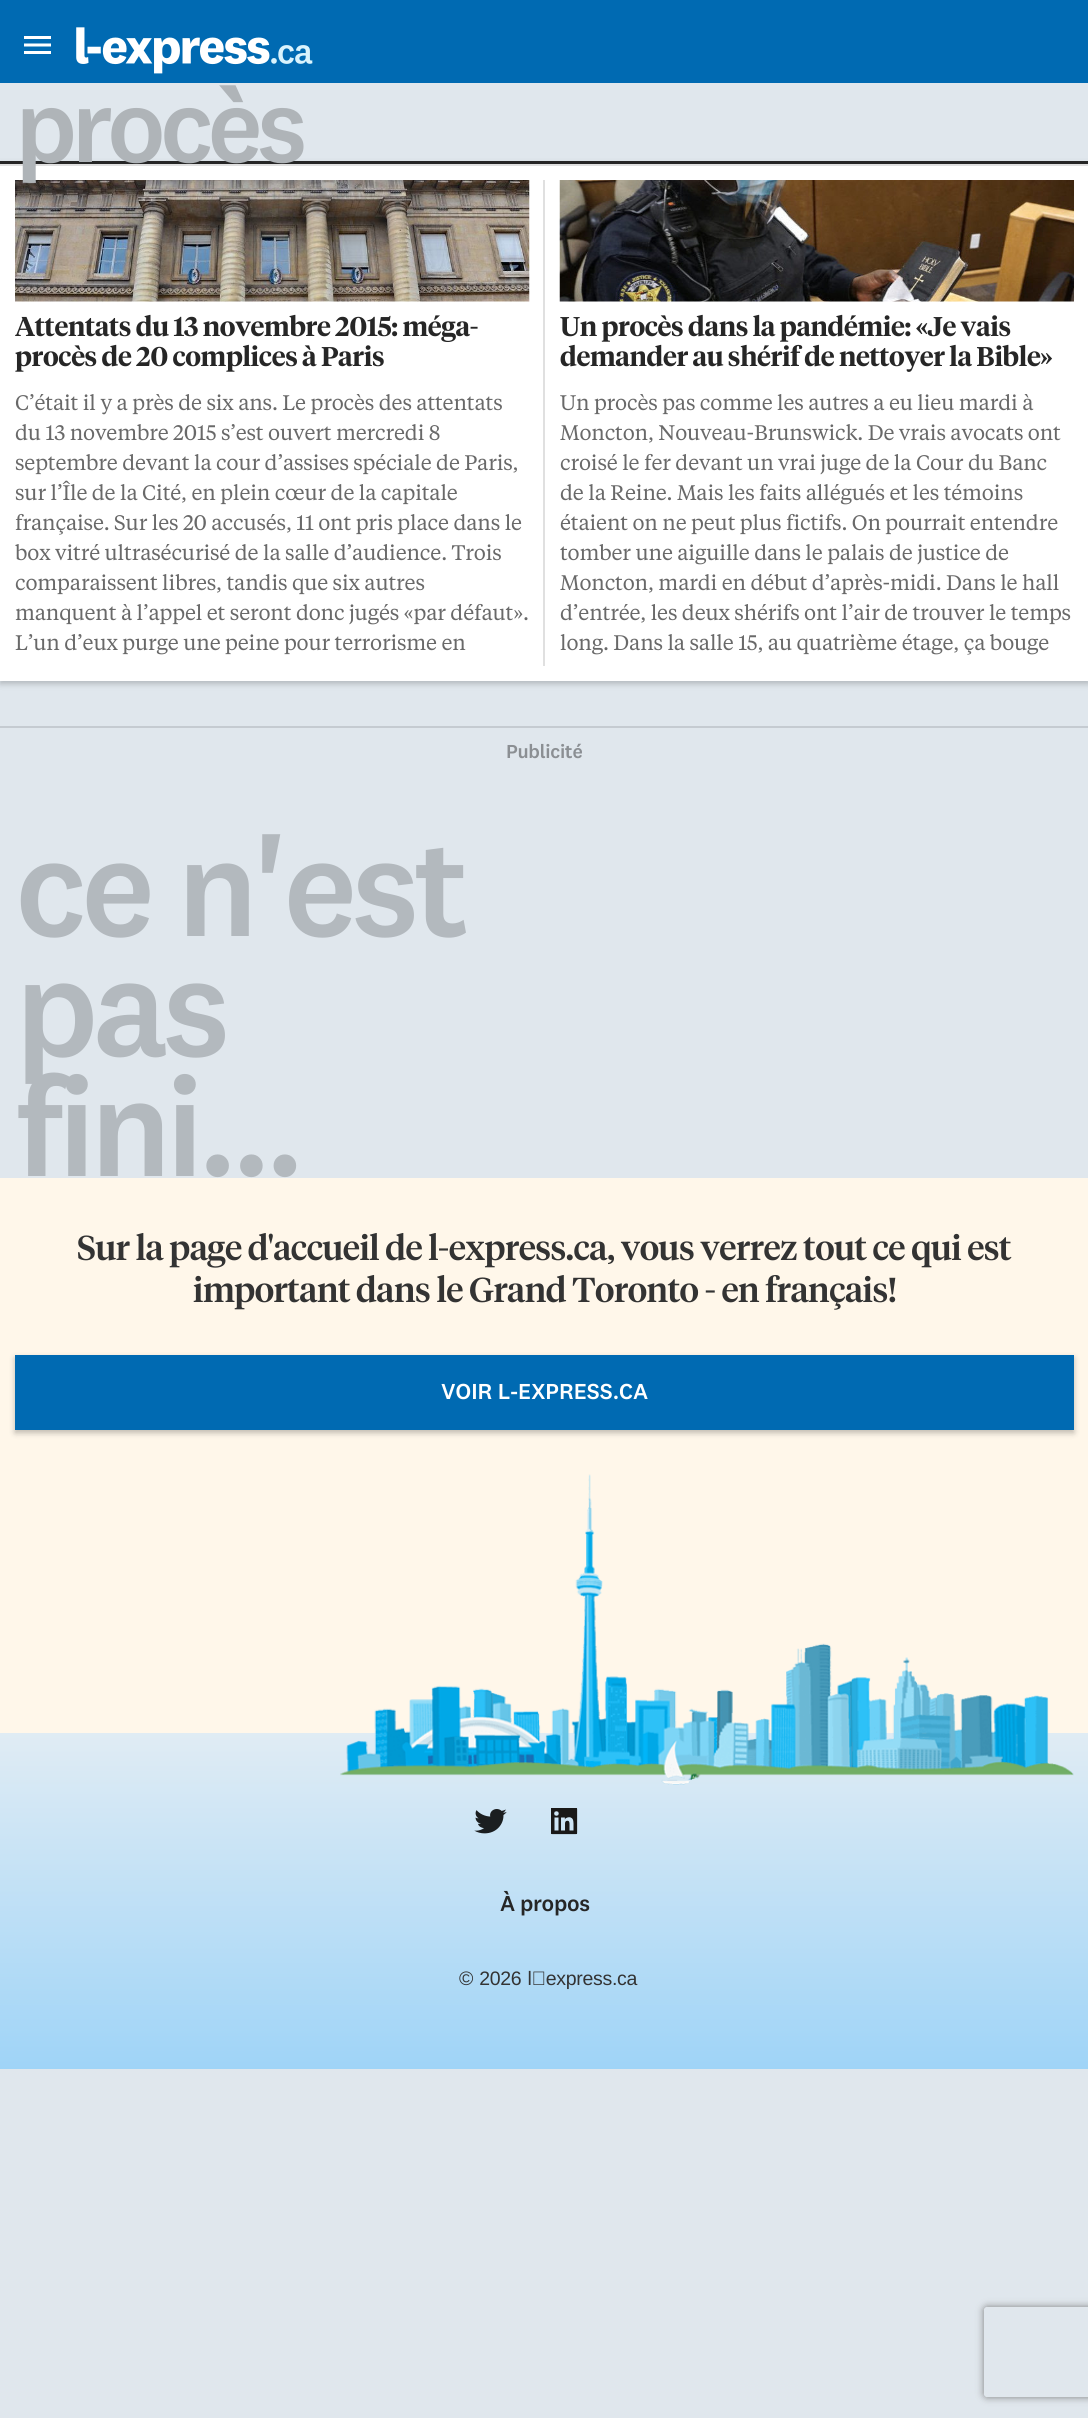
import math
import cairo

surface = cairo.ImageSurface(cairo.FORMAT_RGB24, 1088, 2418)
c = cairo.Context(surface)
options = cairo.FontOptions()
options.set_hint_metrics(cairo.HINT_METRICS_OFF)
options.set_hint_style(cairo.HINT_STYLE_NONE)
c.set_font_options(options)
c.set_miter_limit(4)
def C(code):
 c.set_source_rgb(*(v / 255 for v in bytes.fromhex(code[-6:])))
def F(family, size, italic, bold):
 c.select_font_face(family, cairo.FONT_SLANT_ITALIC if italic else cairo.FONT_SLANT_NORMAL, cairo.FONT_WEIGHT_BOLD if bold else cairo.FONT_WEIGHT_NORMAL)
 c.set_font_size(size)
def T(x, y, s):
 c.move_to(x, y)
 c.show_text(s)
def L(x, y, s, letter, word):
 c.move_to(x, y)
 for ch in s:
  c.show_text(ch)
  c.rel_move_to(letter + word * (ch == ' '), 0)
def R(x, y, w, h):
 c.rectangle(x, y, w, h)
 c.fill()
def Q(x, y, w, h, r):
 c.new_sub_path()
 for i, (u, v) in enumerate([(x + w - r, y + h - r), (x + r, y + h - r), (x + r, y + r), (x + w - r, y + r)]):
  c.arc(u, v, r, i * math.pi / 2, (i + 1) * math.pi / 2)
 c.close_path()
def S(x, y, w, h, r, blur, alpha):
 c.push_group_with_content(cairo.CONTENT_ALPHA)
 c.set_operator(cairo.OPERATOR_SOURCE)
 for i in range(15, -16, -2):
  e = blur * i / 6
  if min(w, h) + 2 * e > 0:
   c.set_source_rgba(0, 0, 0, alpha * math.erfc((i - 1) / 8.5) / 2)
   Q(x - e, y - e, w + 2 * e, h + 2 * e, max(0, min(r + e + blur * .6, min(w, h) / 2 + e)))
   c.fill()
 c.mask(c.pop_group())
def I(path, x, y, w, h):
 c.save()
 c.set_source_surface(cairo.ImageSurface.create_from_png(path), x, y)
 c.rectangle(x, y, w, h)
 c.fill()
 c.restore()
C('e0e7ed')
c.paint()
C('006ab2')
R(0,0,1088,83)
I('1.png',24,36,27,18)
I('2.png',76,27,237,47)
C('000000')
S(0,164,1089,520,0,3,.2)
C('ffffff')
R(0,166,1088,515)
C('262626')
R(0,161,1088,3)
C('e0e0e0')
R(0,164,1088,2)
I('3.png',15,180,515,122)
F('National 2 Medium',105,0,0)
C('afb4b8')
L(15,162,'procès',-6,0)
C('e0e0e0')
R(543,180,2,486)
F('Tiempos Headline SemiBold',27,0,0)
C('262626')
L(15,336,'Attentats du 13 novembre 2015: méga-',-.3,0)
L(15,366,'procès de 20 complices à Paris',-.3,0)
F('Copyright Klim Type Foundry',21,0,0)
C('696969')
L(15,410,'C’était il y a près de six ans. Le procès des attentats',-.15,0)
L(15,440,'du 13 novembre 2015 s’est ouvert mercredi 8',-.15,0)
L(15,470,'septembre devant la cour d’assises spéciale de Paris,',-.15,0)
L(15,500,'sur l’Île de la Cité, en plein cœur de la capitale',-.15,0)
L(15,530,'française. Sur les 20 accusés, 11 ont pris place dans le',-.15,0)
L(15,560,'box vitré ultrasécurisé de la salle d’audience. Trois',-.15,0)
L(15,590,'comparaissent libres, tandis que six autres',-.15,0)
L(15,620,'manquent à l’appel et seront donc jugés «par défaut».',-.15,0)
L(15,650,'L’un d’eux purge une peine pour terrorisme en',-.15,0)
I('4.png',559,180,515,122)
F('Tiempos Headline SemiBold',27,0,0)
C('262626')
L(560,336,'Un procès dans la pandémie: «Je vais',-.3,0)
L(560,366,'demander au shérif de nettoyer la Bible»',-.3,0)
F('Copyright Klim Type Foundry',21,0,0)
C('696969')
L(560,410,'Un procès pas comme les autres a eu lieu mardi à',-.15,0)
L(560,440,'Moncton, Nouveau-Brunswick. De vrais avocats ont',-.15,0)
L(560,470,'croisé le fer devant un vrai juge de la Cour du Banc',-.15,0)
L(560,500,'de la Reine. Mais les faits allégués et les témoins',-.15,0)
L(560,530,'étaient on ne peut plus fictifs. On pourrait entendre',-.15,0)
L(560,560,'tomber une aiguille dans le palais de justice de',-.15,0)
L(560,590,'Moncton, mardi en début d’après-midi. Dans le hall',-.15,0)
L(560,620,'d’entrée, les deux shérifs ont l’air de trouver le temps',-.15,0)
L(560,650,'long. Dans la salle 15, au quatrième étage, ça bouge',-.15,0)
C('c5cbd1')
R(0,726,1088,2)
F('National 2 Medium',19.5,0,0)
C('8b8f93')
L(506,758,'Publicité',-.3,0)
F('National 2 Medium',141,0,0)
C('b3b9be')
L(15,936,'ce n\'est',-6,0)
L(15,1056,'pas',-6,0)
L(15,1176,'fini...',-6,0)
C('fff7ea')
R(0,1178,1088,555)
F('Tiempos Headline Medium',34.5,0,0)
C('333333')
L(77,1260,'Sur la page d\'accueil de l-express.ca, vous verrez tout ce qui est',-.45,0)
L(193,1302,'important dans le Grand Toronto - en français!',-.45,0)
C('000000')
S(15,1358,1059,75,0,3,.25)
C('006ab2')
R(15,1355,1059,75)
F('National 2 Medium',22.5,0,0)
C('ffffff')
T(441,1399,'VOIR L-EXPRESS.CA')
gradient = cairo.LinearGradient(545,2069,545,1733)
gradient.add_color_stop_rgba(0,0.624,0.831,0.969,1)
gradient.add_color_stop_rgba(1,0.878,0.925,0.957,1)
c.set_source(gradient)
R(0,1733,1088,336)
I('5.png',340,1474,734,311)
I('6.png',474,1809,33,25)
I('7.png',551,1808,27,27)
C('262626')
L(500,1911,'À propos',-.3,0)
F('Liberation Sans',19.5,0,0)
C('333333')
L(459,1985,'© 2026 l‑express.ca',-.3,1)
c.save()
c.set_fill_rule(cairo.FILL_RULE_EVEN_ODD)
c.new_path()
c.move_to(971,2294)
c.line_to(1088,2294)
c.line_to(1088,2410)
c.line_to(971,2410)
c.close_path()
c.move_to(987,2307)
c.line_to(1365,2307)
c.curve_to(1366.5,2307,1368,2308.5,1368,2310)
c.line_to(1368,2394)
c.curve_to(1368,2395.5,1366.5,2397,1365,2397)
c.line_to(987,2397)
c.curve_to(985.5,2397,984,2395.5,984,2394)
c.line_to(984,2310)
c.curve_to(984,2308.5,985.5,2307,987,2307)
c.close_path()
c.clip()
C('808080')
S(984,2307,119,90,3,4,1)
c.restore()
surface.write_to_png('o.png')
